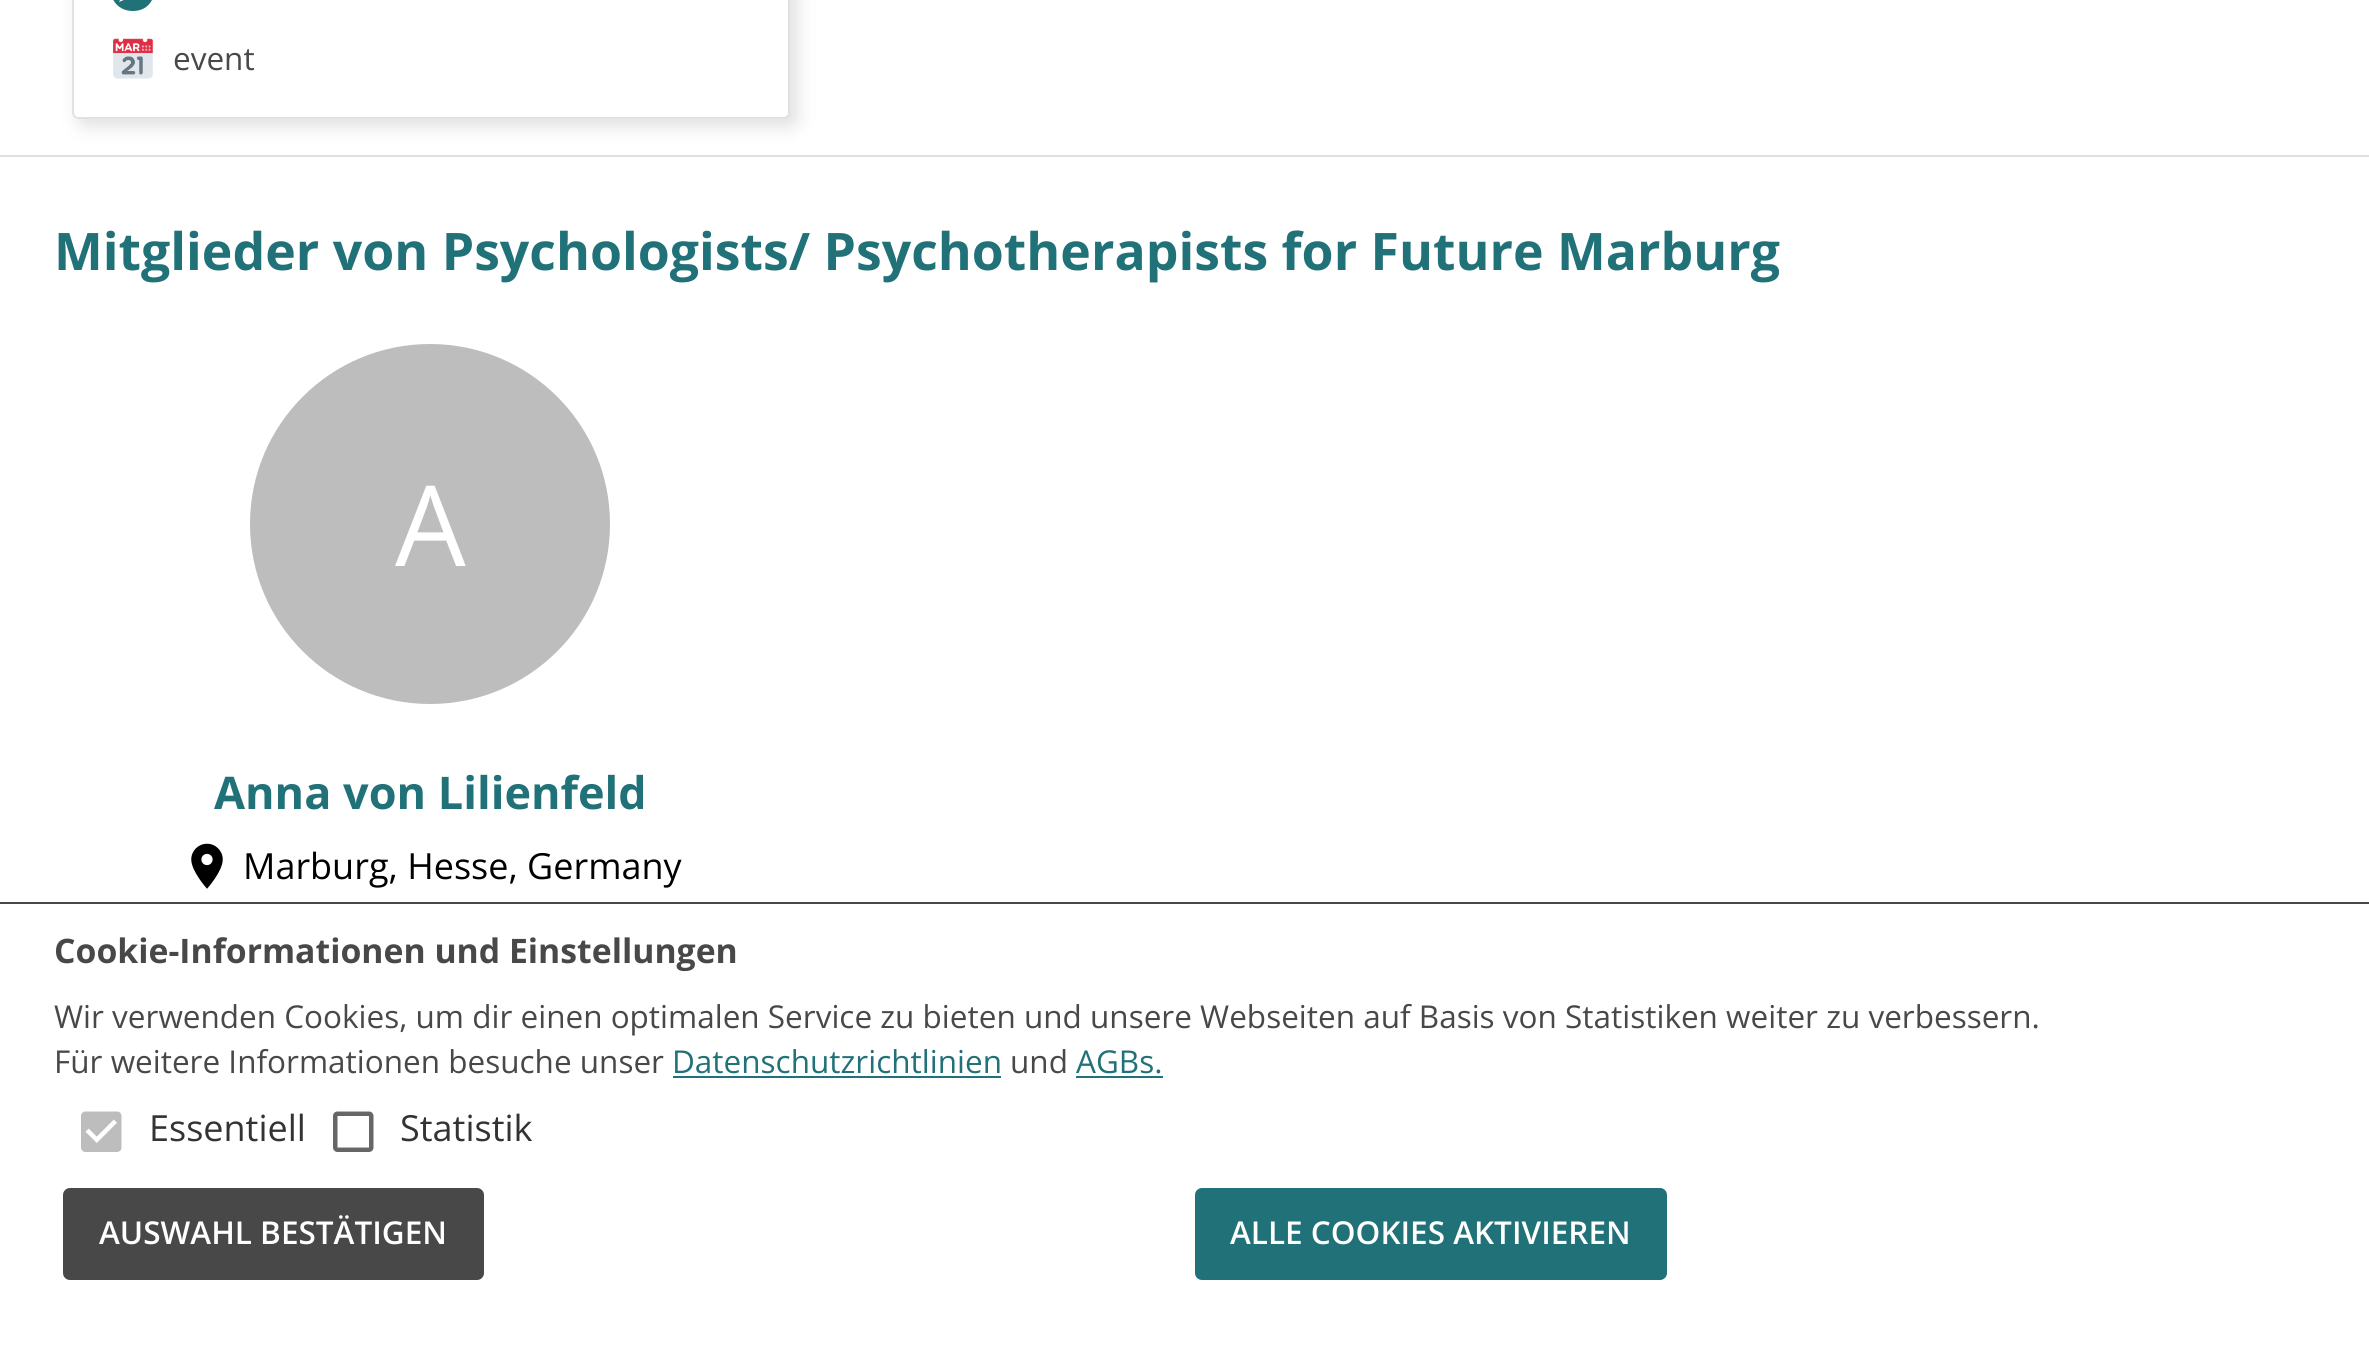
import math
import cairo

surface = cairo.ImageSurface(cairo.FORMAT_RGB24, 2369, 1352)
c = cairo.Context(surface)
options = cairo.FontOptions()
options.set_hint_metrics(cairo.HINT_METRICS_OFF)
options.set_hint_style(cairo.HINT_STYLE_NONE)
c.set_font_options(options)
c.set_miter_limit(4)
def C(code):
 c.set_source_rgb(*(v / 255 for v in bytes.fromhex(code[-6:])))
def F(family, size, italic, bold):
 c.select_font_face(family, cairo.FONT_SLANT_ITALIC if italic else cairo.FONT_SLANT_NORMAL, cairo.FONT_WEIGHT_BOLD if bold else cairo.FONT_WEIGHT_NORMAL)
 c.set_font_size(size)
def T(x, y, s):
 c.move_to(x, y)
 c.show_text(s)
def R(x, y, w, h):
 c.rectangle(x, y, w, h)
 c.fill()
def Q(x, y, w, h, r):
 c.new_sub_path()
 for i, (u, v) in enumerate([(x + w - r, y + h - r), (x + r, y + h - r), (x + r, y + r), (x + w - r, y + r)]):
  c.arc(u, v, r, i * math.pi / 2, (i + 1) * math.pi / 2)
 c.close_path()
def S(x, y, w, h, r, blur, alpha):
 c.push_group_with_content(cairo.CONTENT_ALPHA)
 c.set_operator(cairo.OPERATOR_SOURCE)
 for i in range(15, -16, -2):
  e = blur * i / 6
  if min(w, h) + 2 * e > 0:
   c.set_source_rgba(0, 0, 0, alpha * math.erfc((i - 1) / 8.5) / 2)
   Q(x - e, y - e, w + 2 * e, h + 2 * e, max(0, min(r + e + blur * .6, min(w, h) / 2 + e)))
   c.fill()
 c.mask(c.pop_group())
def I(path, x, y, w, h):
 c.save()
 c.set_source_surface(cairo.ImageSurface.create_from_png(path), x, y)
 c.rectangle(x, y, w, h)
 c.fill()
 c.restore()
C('ffffff')
c.paint()
C('e0e0e0')
S(79,-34,718,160,7,9,1)
C('ffffff')
Q(72,-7,718,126,7)
c.fill()
Q(73,-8,716,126,6)
c.set_source_rgba(0,0,0,0.12)
c.stroke()
C('ffffff')
c.new_path()
c.move_to(74,-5)
c.line_to(788,-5)
c.line_to(788,112)
c.curve_to(788,115,786,117,783,117)
c.line_to(79,117)
c.curve_to(76,117,74,115,74,112)
c.close_path()
c.fill()
C('207178')
c.new_path()
c.move_to(133,-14)
c.curve_to(130,-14,130,-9,133,-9)
c.curve_to(136,-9,136,-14,133,-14)
c.move_to(133,-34)
c.curve_to(103,-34,103,11,133,11)
c.curve_to(162,11,162,-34,133,-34)
c.move_to(138,-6)
c.line_to(119,2)
c.line_to(128,-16)
c.line_to(146,-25)
c.close_path()
c.fill()
I('1.png',113,38,41,41)
F('Open Sans',31.5,0,0)
C('484848')
T(173,70,'event')
C('e0e0e0')
R(0,155,2369,2)
F('Open Sans',51.75,0,1)
C('207178')
T(54,270,'Mitglieder von Psychologists/ Psychotherapists for Future Marburg')
C('bdbdbd')
c.new_path()
c.arc(430,524,180,0,2 * math.pi)
c.fill()
F('Open Sans',112,0,0)
C('ffffff')
T(395,566,'A')
F('Open Sans',45,0,1)
C('207178')
T(214,809,'Anna von Lilienfeld')
I('2.png',191,843,32,46)
F('Open Sans',36,0,0)
C('000000')
T(243,879,'Marburg, Hesse, Germany')
C('484848')
R(0,902,2369,2)
F('Open Sans',33.75,0,1)
T(54,963,'Cookie-Informationen und Einstellungen')
F('Open Sans',31.5,0,0)
T(54,1028,'Wir verwenden Cookies, um dir einen optimalen Service zu bieten und unsere Webseiten auf Basis von Statistiken weiter zu verbessern.')
T(54,1073,'Für weitere Informationen besuche unser')
C('207178')
T(672,1073,'Datenschutzrichtlinien')
R(673,1076,328,2)
C('484848')
T(1010,1073,'und')
C('207178')
T(1076,1073,'AGBs.')
R(1076,1076,87,2)
I('3.png',81,1111,41,41)
F('Open Sans',36,0,0)
C('333333')
T(149,1141,'Essentiell')
I('4.png',333,1111,41,41)
T(400,1141,'Statistik')
C('484848')
Q(63,1188,421,92,7)
c.fill()
F('Open Sans SemiBold',31.5,0,0)
C('ffffff')
T(99,1244,'AUSWAHL BESTÄTIGEN')
C('207178')
Q(1195,1188,472,92,7)
c.fill()
C('ffffff')
T(1230,1244,'ALLE COOKIES AKTIVIEREN')
surface.write_to_png('o.png')
